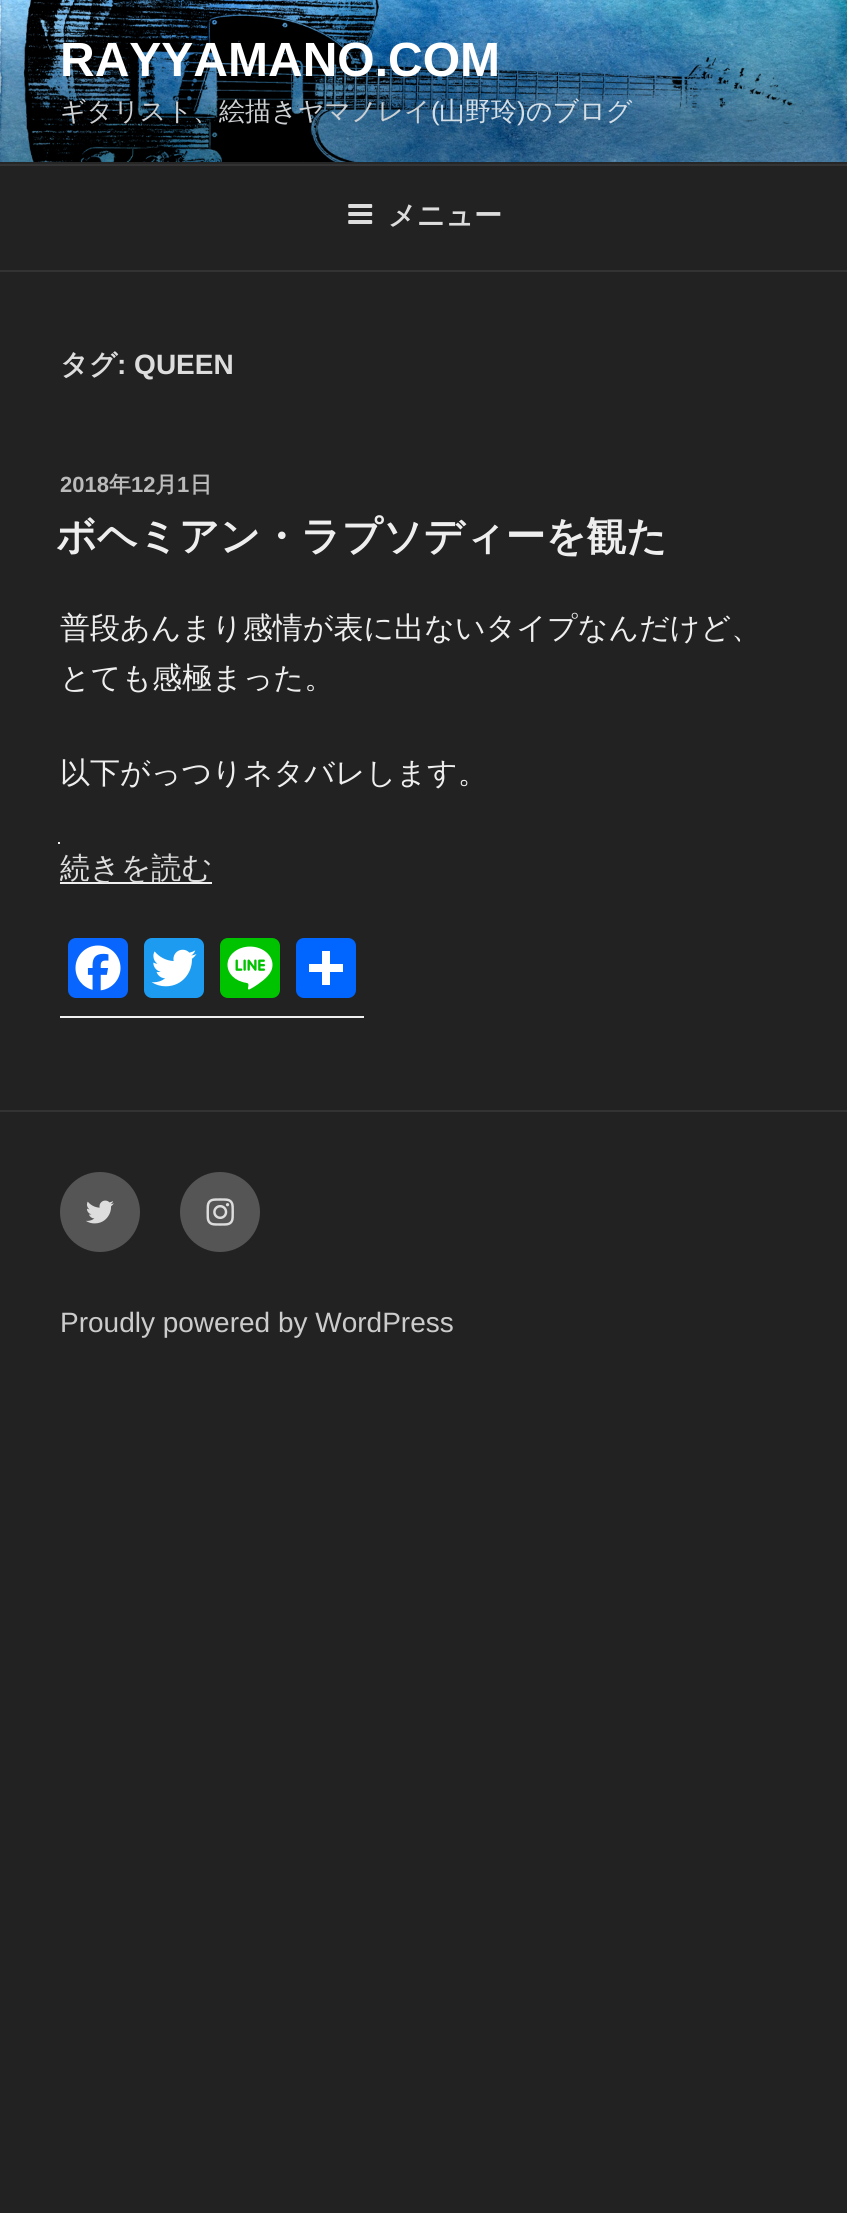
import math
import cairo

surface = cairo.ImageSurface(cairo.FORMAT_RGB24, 847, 2213)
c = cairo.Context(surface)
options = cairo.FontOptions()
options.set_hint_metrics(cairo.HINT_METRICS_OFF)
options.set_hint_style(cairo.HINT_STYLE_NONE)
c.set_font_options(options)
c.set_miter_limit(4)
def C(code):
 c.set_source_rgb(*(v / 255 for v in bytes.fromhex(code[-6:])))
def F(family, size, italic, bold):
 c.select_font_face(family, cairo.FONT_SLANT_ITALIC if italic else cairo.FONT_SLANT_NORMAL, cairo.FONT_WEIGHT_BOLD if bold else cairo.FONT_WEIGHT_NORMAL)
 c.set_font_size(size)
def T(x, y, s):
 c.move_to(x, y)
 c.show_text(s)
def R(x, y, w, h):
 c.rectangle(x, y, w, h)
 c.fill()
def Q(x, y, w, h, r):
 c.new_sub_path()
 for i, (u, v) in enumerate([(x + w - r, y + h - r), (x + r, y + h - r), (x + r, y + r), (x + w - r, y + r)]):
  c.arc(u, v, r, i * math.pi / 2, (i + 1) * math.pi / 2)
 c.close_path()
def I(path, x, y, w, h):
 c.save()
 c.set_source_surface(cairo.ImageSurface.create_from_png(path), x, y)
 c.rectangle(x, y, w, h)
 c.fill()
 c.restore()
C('222222')
c.paint()
C('262626')
R(0,162,847,2)
I('1.png',0,0,847,162)
F('Liberation Sans',48,0,1)
C('ffffff')
T(60,76,'RAYYAMANO.COM')
F('WenQuanYi Zen Hei Medium',26,0,0)
C('ced1d3')
T(60,120,'ギタリスト、絵描きヤマノレイ')
F('Liberation Sans',26,0,0)
C('d4dee6')
T(431,120,'(')
F('WenQuanYi Zen Hei Medium',26,0,0)
T(439,120,'山野玲')
F('Liberation Sans',26,0,0)
T(517,120,')')
F('WenQuanYi Zen Hei Medium',26,0,0)
T(526,120,'のブログ')
C('333333')
R(0,164,847,2)
R(0,270,847,2)
I('2.png',348,204,25,20)
F('WenQuanYi Zen Hei',28,0,1)
C('dddddd')
T(388,225,'メニュー')
T(60,374,'タグ')
F('Liberation Sans',28,0,1)
T(117,374,': QUEEN')
F('Liberation Sans',22,0,1)
C('bbbbbb')
T(60,492,'2018')
F('WenQuanYi Zen Hei',22,0,1)
T(109,492,'年')
F('Liberation Sans',22,0,1)
T(131,492,'12')
F('WenQuanYi Zen Hei',22,0,1)
T(155,492,'月')
F('Liberation Sans',22,0,1)
T(177,492,'1')
F('WenQuanYi Zen Hei',22,0,1)
T(190,492,'日')
F('WenQuanYi Zen Hei',40,0,1)
C('eeeeee')
T(56,550,'ボヘミアン・ラプソディーを観た')
F('WenQuanYi Zen Hei Medium',30,0,0)
T(60,638,'普段あんまり感情が表に出ないタイプなんだけど、')
T(60,688,'とても感極まった。')
T(60,783,'以下がっつりネタバレします。')
C('f0f0f0')
R(60,882,152,2)
C('dddddd')
T(60,878,'続きを読む')
C('f0f0f0')
R(58,842,2,2)
R(60,1016,304,2)
C('0866ff')
Q(68,938,60,60,8)
c.fill()
I('3.png',75,945,46,46)
C('1d9bf0')
Q(144,938,60,60,8)
c.fill()
I('4.png',151,949,46,38)
C('00c300')
Q(220,938,60,60,8)
c.fill()
I('5.png',227,946,46,44)
C('0166ff')
Q(296,938,60,60,8)
c.fill()
C('ffffff')
R(322,951,8,34)
R(309,964,34,8)
C('333333')
R(0,1110,847,2)
C('555555')
c.arc(100,1212,40,0,2 * math.pi)
c.fill()
I('6.png',86,1200,28,24)
c.arc(220,1212,40,0,2 * math.pi)
c.fill()
I('7.png',206,1198,28,28)
F('Liberation Sans',28,0,0)
C('cccccc')
T(60,1332,'Proudly powered by WordPress')
surface.write_to_png('o.png')
